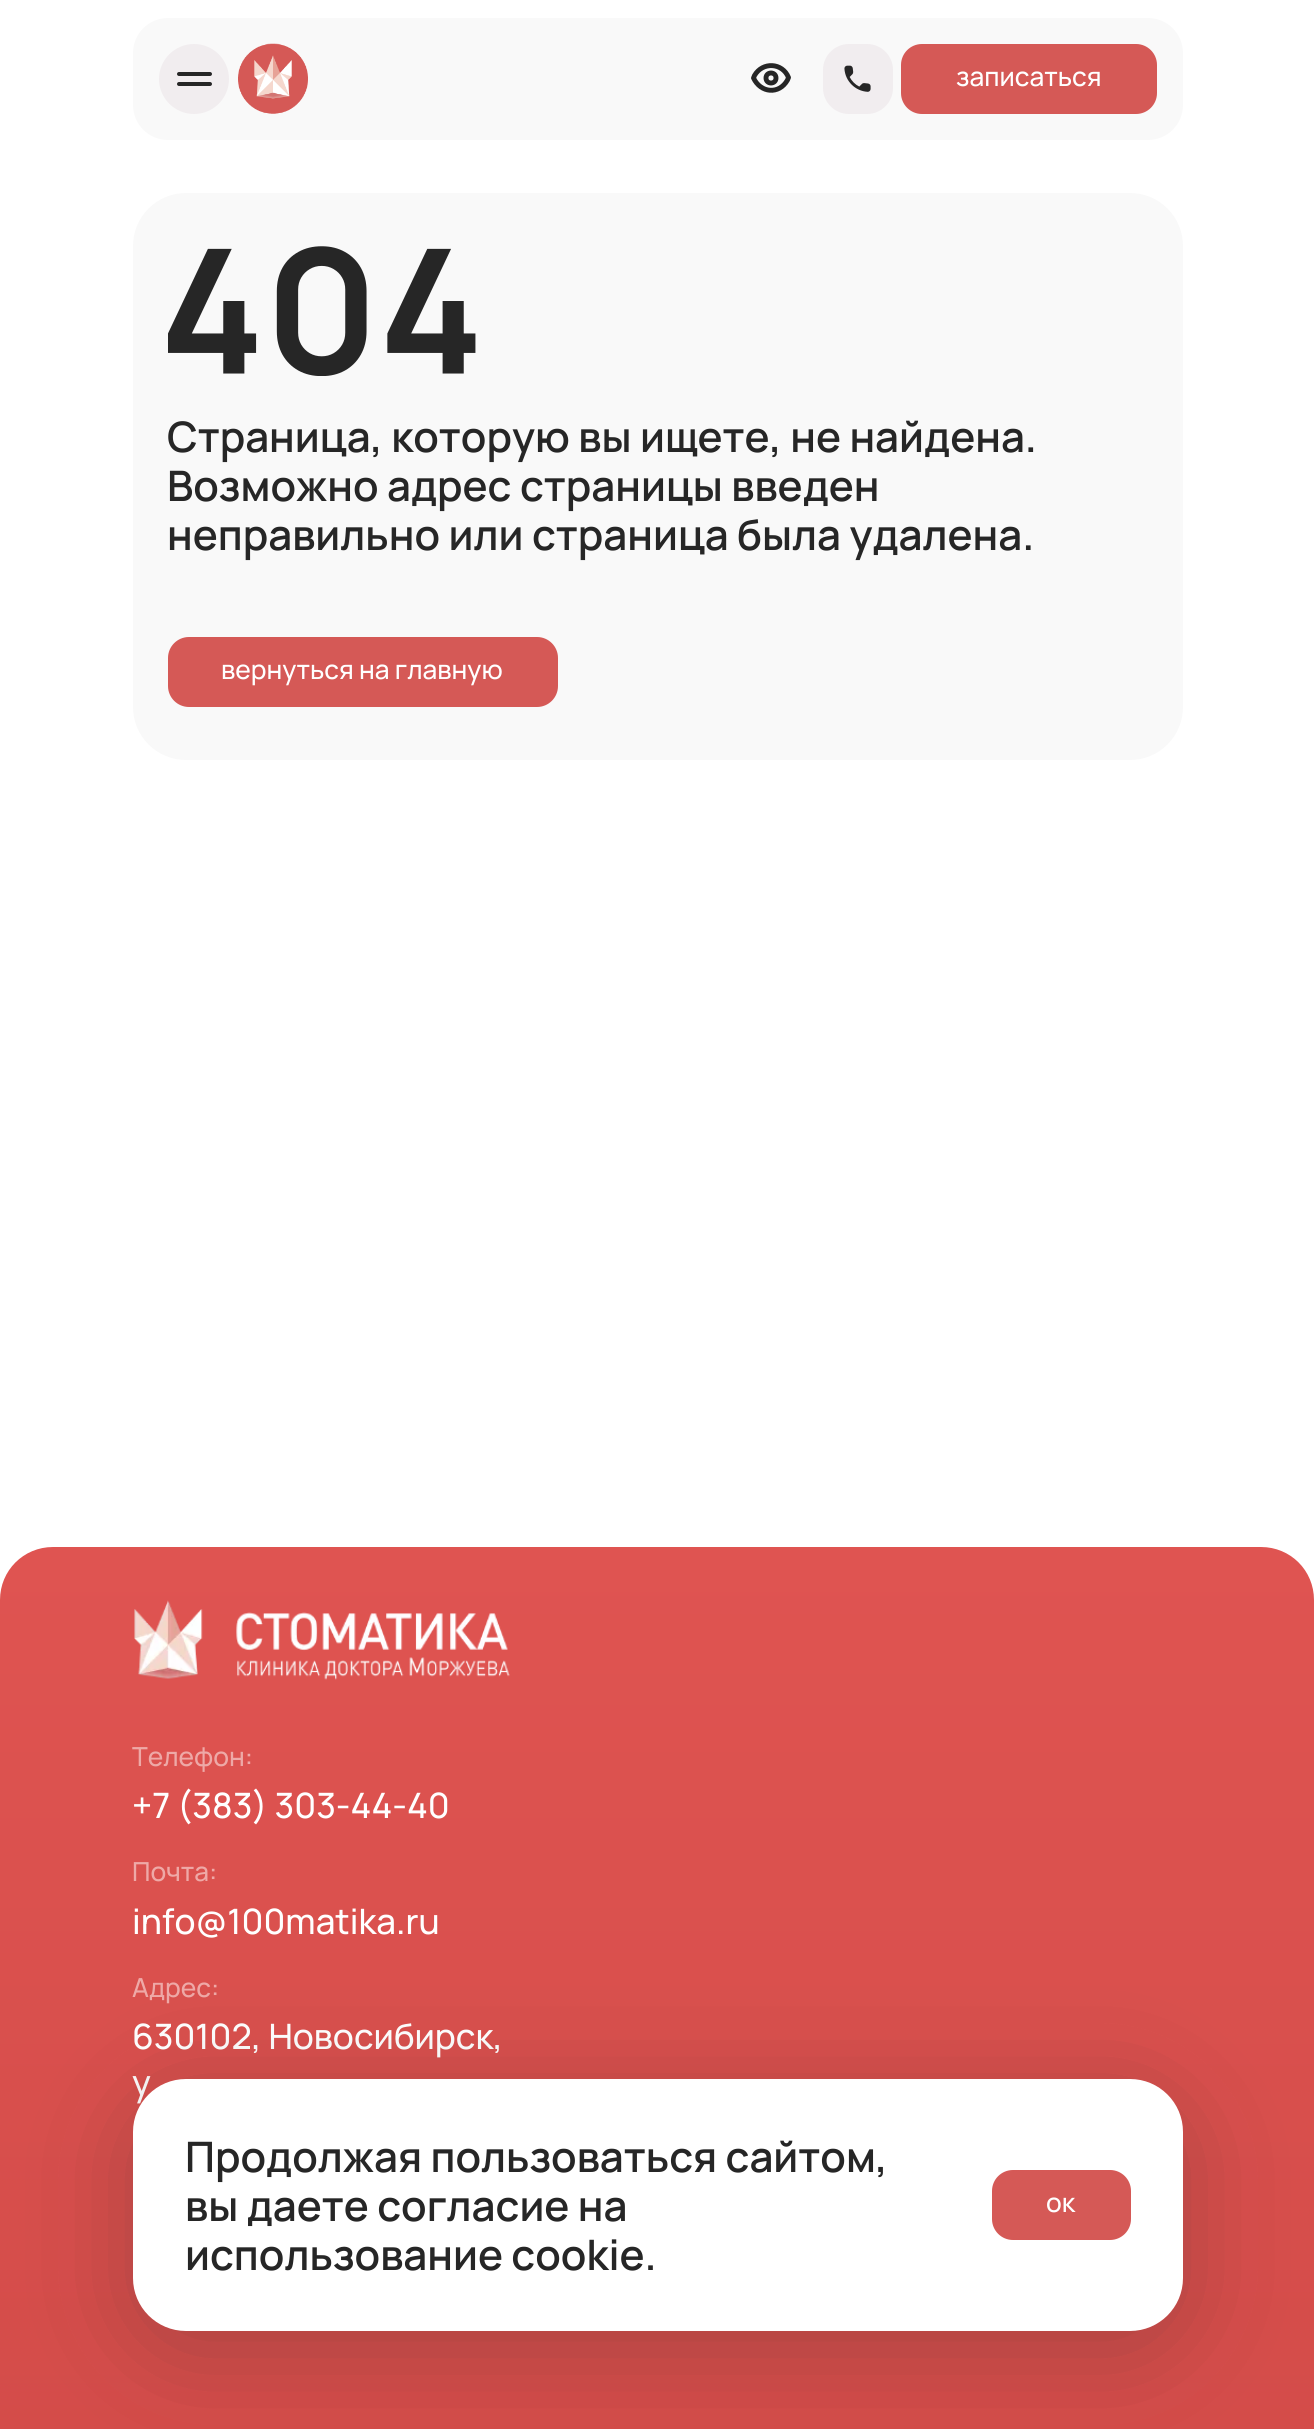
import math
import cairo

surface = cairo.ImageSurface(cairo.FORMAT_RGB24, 1314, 2429)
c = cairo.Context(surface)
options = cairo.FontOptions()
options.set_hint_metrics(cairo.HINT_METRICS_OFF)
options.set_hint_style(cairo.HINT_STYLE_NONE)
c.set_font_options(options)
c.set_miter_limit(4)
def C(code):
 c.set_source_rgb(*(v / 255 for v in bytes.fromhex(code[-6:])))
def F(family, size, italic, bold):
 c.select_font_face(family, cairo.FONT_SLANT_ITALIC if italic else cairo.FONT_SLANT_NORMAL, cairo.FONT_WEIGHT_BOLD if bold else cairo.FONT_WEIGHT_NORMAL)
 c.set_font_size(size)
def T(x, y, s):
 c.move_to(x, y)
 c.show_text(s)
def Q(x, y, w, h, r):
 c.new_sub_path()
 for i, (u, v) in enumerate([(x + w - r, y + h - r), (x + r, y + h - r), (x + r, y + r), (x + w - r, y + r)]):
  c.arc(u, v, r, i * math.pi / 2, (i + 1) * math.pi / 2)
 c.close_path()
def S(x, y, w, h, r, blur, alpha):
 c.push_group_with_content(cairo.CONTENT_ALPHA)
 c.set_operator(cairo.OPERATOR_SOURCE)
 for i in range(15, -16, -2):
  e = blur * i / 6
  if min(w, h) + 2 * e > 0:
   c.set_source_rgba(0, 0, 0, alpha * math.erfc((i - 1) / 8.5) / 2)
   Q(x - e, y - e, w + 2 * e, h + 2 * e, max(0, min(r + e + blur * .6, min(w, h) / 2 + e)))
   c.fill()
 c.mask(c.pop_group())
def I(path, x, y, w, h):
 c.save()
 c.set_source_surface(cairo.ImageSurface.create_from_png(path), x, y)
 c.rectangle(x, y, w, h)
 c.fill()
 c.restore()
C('ffffff')
c.paint()
C('f9f9f9')
Q(133,18,1050,122,35)
c.fill()
C('f1edef')
c.arc(194,79,35,0,2 * math.pi)
c.fill()
C('262626')
Q(177,72,35,4,2)
c.fill()
Q(177,82,35,4,2)
c.fill()
I('1.png',238,43,70,71)
c.new_path()
c.move_to(788.5,77.5)
c.line_to(787.5,80)
c.curve_to(779,95,760.5,93,753.5,78)
c.line_to(754.5,75.5)
c.curve_to(762.5,61.5,782.5,62.5,788.5,77.5)
c.close_path()
c.set_line_width(4.9)
c.set_line_join(cairo.LINE_JOIN_ROUND)
c.stroke()
c.arc(771,78,5,0,2 * math.pi)
c.set_line_join(cairo.LINE_JOIN_MITER)
c.stroke()
C('f1edef')
Q(823,44,70,70,26)
c.fill()
I('2.png',844,65,27,27)
C('d55956')
Q(902,45,254,68,20)
c.fill_preserve()
c.set_line_width(2)
c.stroke()
F('Manrope Medium',26.25,0,0)
C('ffffff')
T(956,86,'записаться')
C('f9f9f9')
Q(133,193,1050,567,53)
c.fill()
I('3.png',168,246,308,130)
F('Manrope SemiBold',42,0,0)
C('262626')
T(167,452,'Страница, которую вы ищете, не найдена.')
T(167,501,'Возможно адрес страницы введен')
T(167,550,'неправильно или страница была удалена.')
C('d55956')
Q(169,638,388,68,20)
c.fill_preserve()
c.stroke()
F('Manrope Medium',26.25,0,0)
C('ffffff')
T(221,679,'вернуться на главную')
gradient = cairo.LinearGradient(657,1547,657,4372)
gradient.add_color_stop_rgba(0,0.875,0.329,0.318,1)
gradient.add_color_stop_rgba(1,0.733,0.231,0.22,1)
c.set_source(gradient)
c.new_path()
c.move_to(53,1547)
c.line_to(1261,1547)
c.curve_to(1290.5,1547,1314,1570.5,1314,1600)
c.line_to(1314,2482)
c.line_to(0,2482)
c.line_to(0,1600)
c.curve_to(0,1570.5,23.5,1547,53,1547)
c.close_path()
c.fill()
I('4.png',134,1600,376,80)
C('eea9a7')
T(132,1766,'Телефон:')
F('Manrope Medium',35,0,0)
C('ffffff')
T(132,1818,'+7 (383) 303-44-40')
F('Manrope Medium',26.25,0,0)
C('eea9a7')
T(132,1881,'Почта:')
F('Manrope Medium',35,0,0)
C('ffffff')
T(132,1934,'info@100matika.ru')
F('Manrope Medium',26.25,0,0)
C('eea9a7')
T(132,1997,'Адрес:')
F('Manrope Medium',35,0,0)
C('ffffff')
T(132,2049,'630102, Новосибирск,')
T(132,2095,'у')
C('262626')
S(133,2098,1050,252,53,50,.25)
C('ffffff')
Q(133,2079,1050,252,53)
c.fill()
F('Manrope SemiBold',42,0,0)
C('262626')
T(185,2172,'Продолжая пользоваться сайтом,')
T(185,2221,'вы даете согласие на')
T(185,2270,'использование cookie.')
C('d55956')
Q(993,2171,137,68,20)
c.fill_preserve()
c.stroke()
F('Manrope Medium',26.25,0,0)
C('ffffff')
T(1046,2212,'ок')
surface.write_to_png('o.png')
